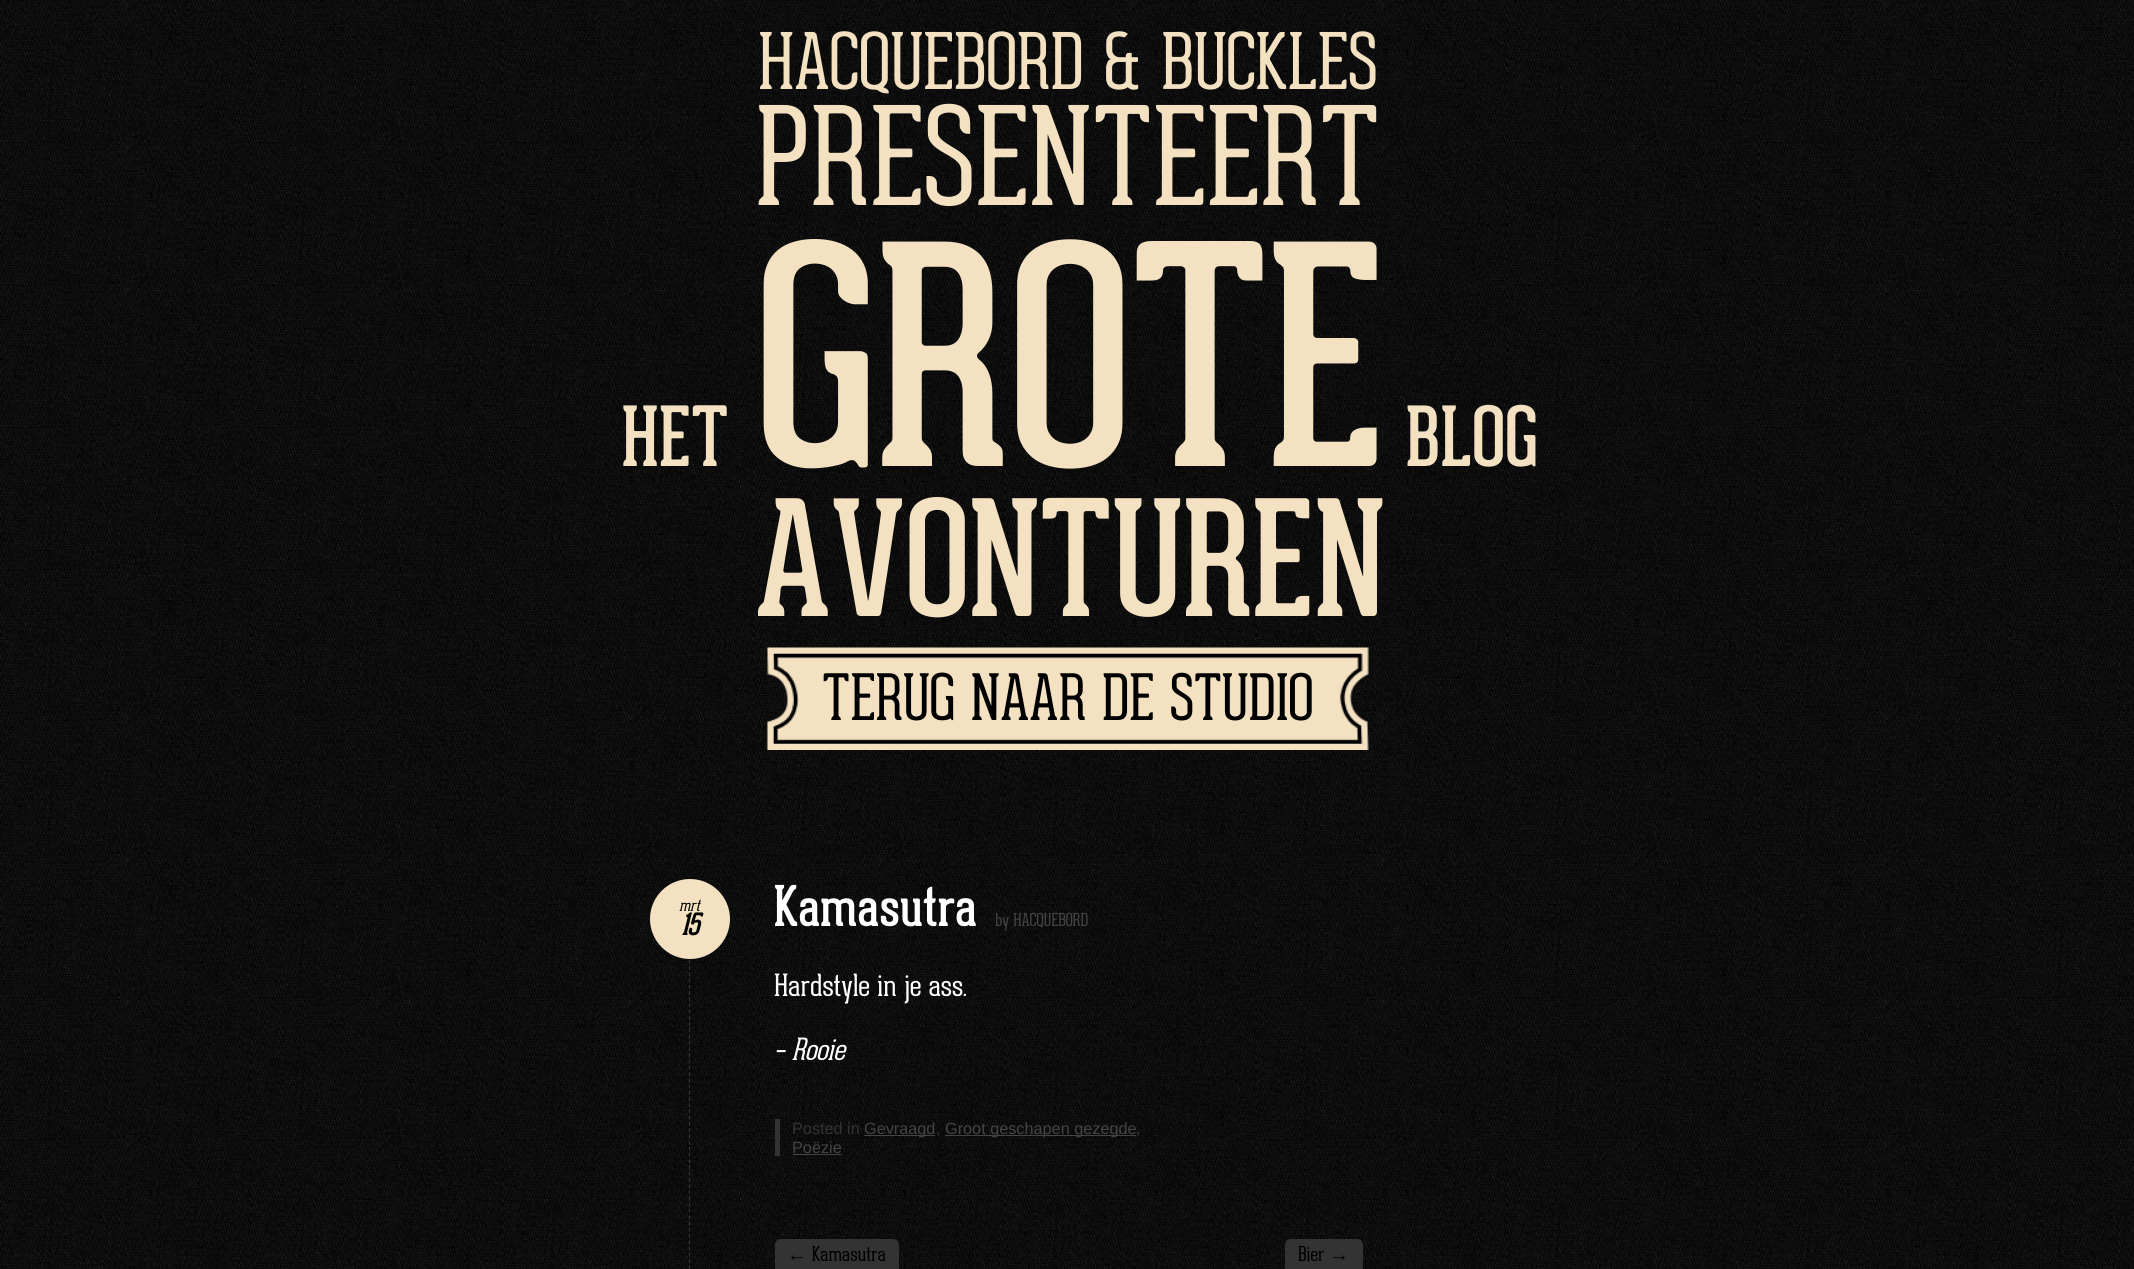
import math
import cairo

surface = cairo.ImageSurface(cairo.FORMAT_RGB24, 2134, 1269)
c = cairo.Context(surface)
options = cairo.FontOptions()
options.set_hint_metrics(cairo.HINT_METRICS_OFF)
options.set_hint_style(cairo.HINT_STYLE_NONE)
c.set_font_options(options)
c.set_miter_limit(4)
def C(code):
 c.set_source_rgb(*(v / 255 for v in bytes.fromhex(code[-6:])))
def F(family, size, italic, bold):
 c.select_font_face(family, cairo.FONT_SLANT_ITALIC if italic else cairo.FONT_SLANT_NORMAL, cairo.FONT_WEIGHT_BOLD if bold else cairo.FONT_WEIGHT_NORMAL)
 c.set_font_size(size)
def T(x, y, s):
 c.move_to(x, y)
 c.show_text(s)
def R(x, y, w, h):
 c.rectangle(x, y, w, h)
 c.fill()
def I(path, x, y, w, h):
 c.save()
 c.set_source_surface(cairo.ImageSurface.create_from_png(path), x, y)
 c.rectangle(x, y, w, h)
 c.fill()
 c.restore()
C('ffffff')
c.paint()
I('1.png',0,0,2134,1269)
F('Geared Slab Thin',76.25,0,0)
C('f3e1c1')
T(758,89,'HACQUEBORD & BUCKLES')
F('Geared Slab Thin',133.75,0,0)
T(755,205,'PRESENTEERT')
F('Geared Slab',81,0,0)
T(621,466,'HET')
F('Geared Slab',300,0,0)
T(755,466,'GROTE')
F('Geared Slab',157.5,0,0)
T(755,616,'AVONTUREN')
F('Geared Slab',81,0,0)
T(1406,466,'BLOG')
I('2.png',766,647,603,103)
F('Geared Slab Thin',62.5,0,0)
C('000000')
T(822,720,'TERUG NAAR DE STUDIO')
c.new_path()
c.move_to(689.5,879)
c.line_to(689.5,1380)
C('333333')
c.set_line_width(1.2)
c.set_dash([3.75,2.48])
c.stroke()
F('Geared Slab',55,0,0)
C('ffffff')
T(774,926,'Kamasutra')
C('f3e1c1')
c.new_path()
c.arc(690,919,40,0,2 * math.pi)
c.fill()
F('Geared Slab Thin',16.25,1,0)
C('000000')
T(679,911,'mrt')
F('Geared Slab',29,1,1)
T(681,935,'15')
F('Geared Slab Thin',17.5,0,0)
C('444444')
T(995,926,'by HACQUEBORD')
F('Geared Slab Thin',30,0,0)
C('ffffff')
T(774,996,'Hardstyle in je ass.')
F('Geared Slab Thin',30,1,0)
T(774,1060,'– Rooie')
C('333333')
R(775,1119,5,37)
F('Liberation Sans',16.25,0,0)
T(792,1134,'Posted in')
C('444444')
R(864,1135,71,1)
T(864,1134,'Gevraagd')
C('333333')
T(936,1134,',')
C('444444')
R(945,1135,191,1)
T(945,1134,'Groot geschapen gezegde')
C('333333')
T(1136,1134,',')
C('444444')
T(792,1153,'Poëzie')
R(793,1154,48,1)
C('333333')
c.new_path()
c.move_to(781,1239)
c.line_to(808,1239)
c.line_to(808,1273)
c.line_to(781,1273)
c.curve_to(777.5,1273,775,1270.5,775,1267)
c.line_to(775,1245)
c.curve_to(775,1241.5,777.5,1239,781,1239)
c.close_path()
c.fill()
F('Liberation Serif',20,0,0)
C('000000')
T(787,1261,'←')
C('333333')
c.new_path()
c.move_to(808,1239)
c.line_to(893,1239)
c.curve_to(896.5,1239,899,1241.5,899,1245)
c.line_to(899,1267)
c.curve_to(899,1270.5,896.5,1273,893,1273)
c.line_to(808,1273)
c.close_path()
c.fill()
F('Geared Slab Thin',20,0,0)
C('000000')
T(812,1261,'Kamasutra')
C('333333')
c.new_path()
c.move_to(1291,1239)
c.line_to(1330,1239)
c.line_to(1330,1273)
c.line_to(1291,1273)
c.curve_to(1287.5,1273,1285,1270.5,1285,1267)
c.line_to(1285,1245)
c.curve_to(1285,1241.5,1287.5,1239,1291,1239)
c.close_path()
c.fill()
C('000000')
T(1298,1261,'Bier')
C('333333')
c.new_path()
c.move_to(1330,1239)
c.line_to(1357,1239)
c.curve_to(1360.5,1239,1363,1241.5,1363,1245)
c.line_to(1363,1267)
c.curve_to(1363,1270.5,1360.5,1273,1357,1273)
c.line_to(1330,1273)
c.close_path()
c.fill()
F('Liberation Serif',20,0,0)
C('000000')
T(1329,1261,'→')
surface.write_to_png('o.png')
